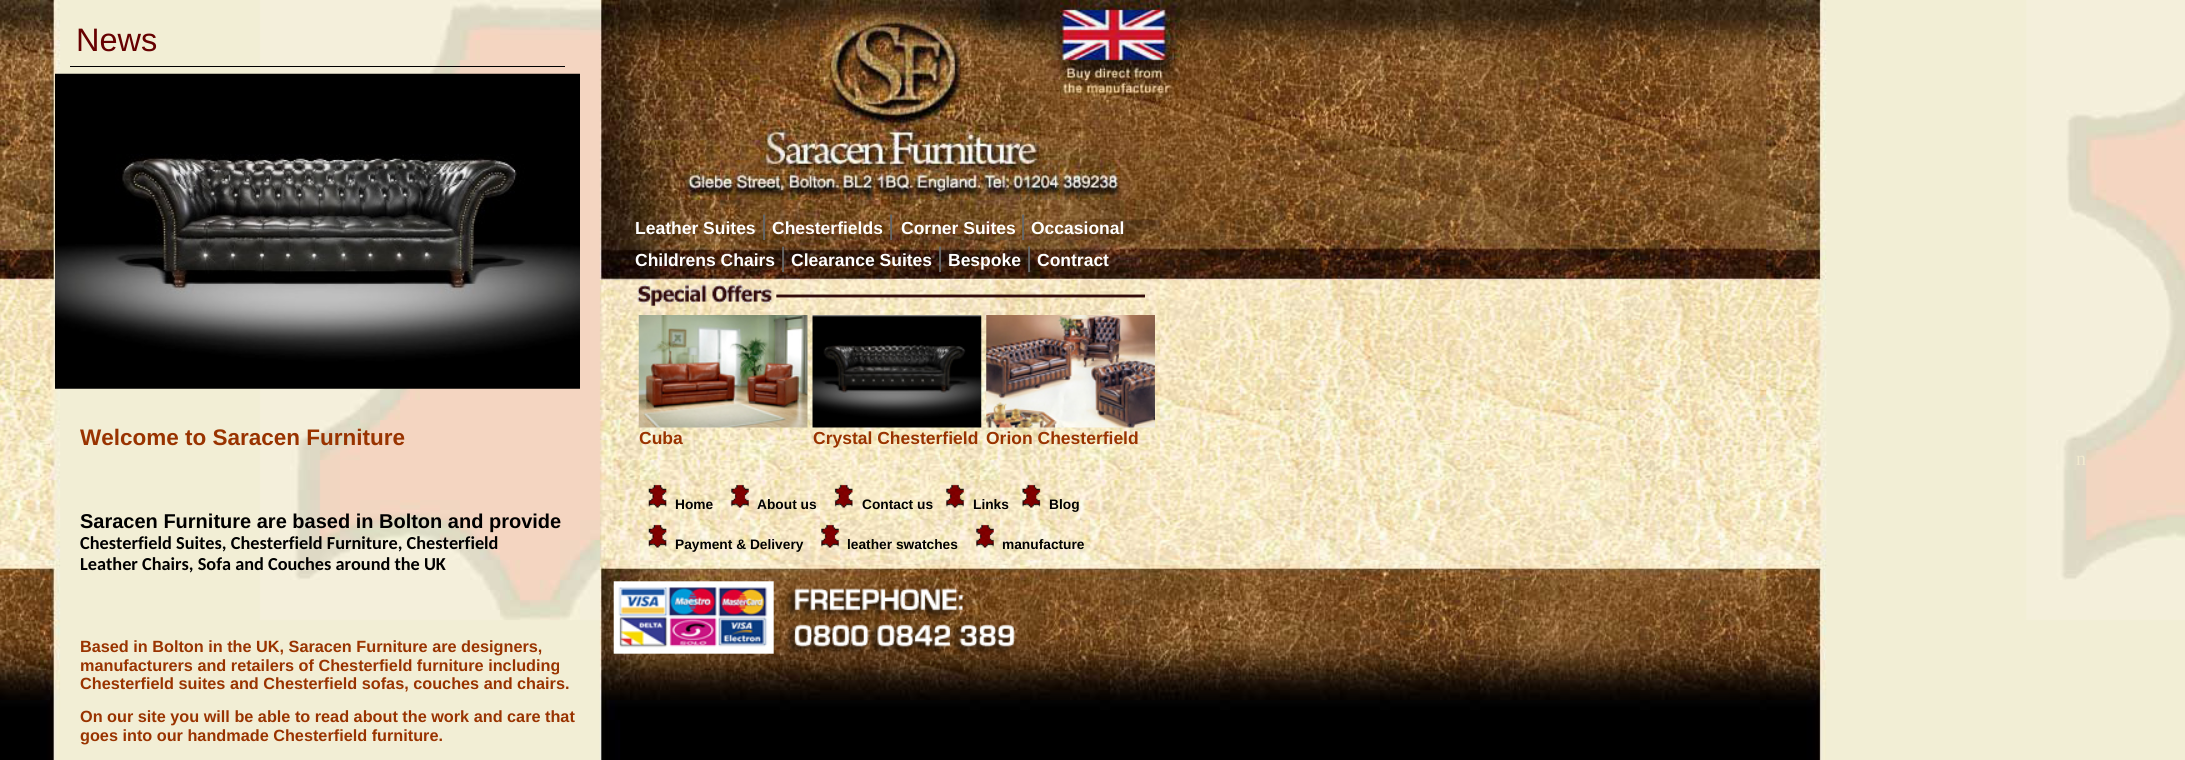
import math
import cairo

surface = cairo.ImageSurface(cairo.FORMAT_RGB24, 2185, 760)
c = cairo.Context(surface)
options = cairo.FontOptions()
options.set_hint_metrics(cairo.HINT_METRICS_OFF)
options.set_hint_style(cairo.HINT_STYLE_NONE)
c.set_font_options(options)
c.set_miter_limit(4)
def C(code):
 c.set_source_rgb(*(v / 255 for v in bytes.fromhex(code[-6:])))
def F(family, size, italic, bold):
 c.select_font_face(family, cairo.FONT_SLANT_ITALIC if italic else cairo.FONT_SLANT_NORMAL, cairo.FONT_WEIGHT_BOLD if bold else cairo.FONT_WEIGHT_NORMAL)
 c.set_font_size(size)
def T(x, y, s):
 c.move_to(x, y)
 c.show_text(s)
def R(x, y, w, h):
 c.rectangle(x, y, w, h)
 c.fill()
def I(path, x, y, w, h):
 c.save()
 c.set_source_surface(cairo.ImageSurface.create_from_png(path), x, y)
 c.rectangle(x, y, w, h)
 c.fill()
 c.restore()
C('ffffff')
c.paint()
I('1.png',0,0,2185,760)
C('000000')
R(70,66,495,1)
F('Liberation Sans',32.5,0,0)
C('660000')
T(76,51,'News')
I('2.png',55,73,525,316)
F('Liberation Sans',22.5,0,1)
C('993300')
T(80,445,'Welcome to Saracen Furniture')
F('Liberation Sans',20,0,1)
C('000000')
T(80,528,'Saracen Furniture are based in Bolton and provide')
F('Carlito',18.3,0,1)
T(80,549,'Chesterfield Suites, Chesterfield Furniture, Chesterfield')
T(80,570,'Leather Chairs, Sofa and Couches around the UK')
F('Liberation Sans',16.25,0,1)
C('993300')
T(80,652,'Based in Bolton in the UK, Saracen Furniture are designers,')
T(80,671,'manufacturers and retailers of Chesterfield furniture including')
T(80,689,'Chesterfield suites and Chesterfield sofas, couches and chairs.')
T(80,722,'On our site you will be able to read about the work and care that')
T(80,741,'goes into our handmade Chesterfield furniture.')
F('Liberation Sans',17.5,0,1)
C('ffffff')
T(635,234,'Leather Suites')
F('Liberation Serif',28,0,1)
C('666666')
T(761,234,'|')
F('Liberation Sans',17.5,0,1)
C('ffffff')
T(772,234,'Chesterfields')
F('Liberation Serif',28,0,1)
C('666666')
T(888,234,'|')
F('Liberation Sans',17.5,0,1)
C('ffffff')
T(901,234,'Corner Suites')
F('Liberation Serif',28,0,1)
C('666666')
T(1020,234,'|')
F('Liberation Sans',17.5,0,1)
C('ffffff')
T(1031,234,'Occasional')
T(635,266,'Childrens Chairs')
F('Liberation Serif',28,0,1)
C('666666')
T(780,266,'|')
F('Liberation Sans',17.5,0,1)
C('ffffff')
T(791,266,'Clearance Suites')
F('Liberation Serif',28,0,1)
C('666666')
T(937,266,'|')
F('Liberation Sans',17.5,0,1)
C('ffffff')
T(948,266,'Bespoke')
F('Liberation Serif',28,0,1)
C('666666')
T(1026,266,'|')
F('Liberation Sans',17.5,0,1)
C('ffffff')
T(1037,266,'Contract')
I('3.png',637,284,508,22)
I('4.png',638,315,170,113)
C('993300')
T(639,444,'Cuba')
F('Liberation Serif',20,0,0)
C('f2eacf')
T(2076,465,'n')
I('5.png',812,315,170,113)
F('Liberation Sans',17.5,0,1)
C('993300')
T(813,444,'Crystal Chesterfield')
I('6.png',986,315,169,113)
T(986,444,'Orion Chesterfield')
I('7.png',648,484,19,24)
F('Liberation Sans',13.75,0,1)
C('000000')
T(675,509,'Home')
I('8.png',731,484,18,24)
T(757,509,'About us')
I('9.png',834,484,19,24)
T(862,509,'Contact us')
I('10.png',946,484,18,24)
T(973,509,'Links')
I('11.png',1022,484,19,24)
T(1049,509,'Blog')
I('12.png',648,524,19,24)
T(675,549,'Payment & Delivery')
I('13.png',821,524,18,24)
T(847,549,'leather swatches')
I('14.png',976,524,18,24)
T(1002,549,'manufacture')
surface.write_to_png('o.png')
